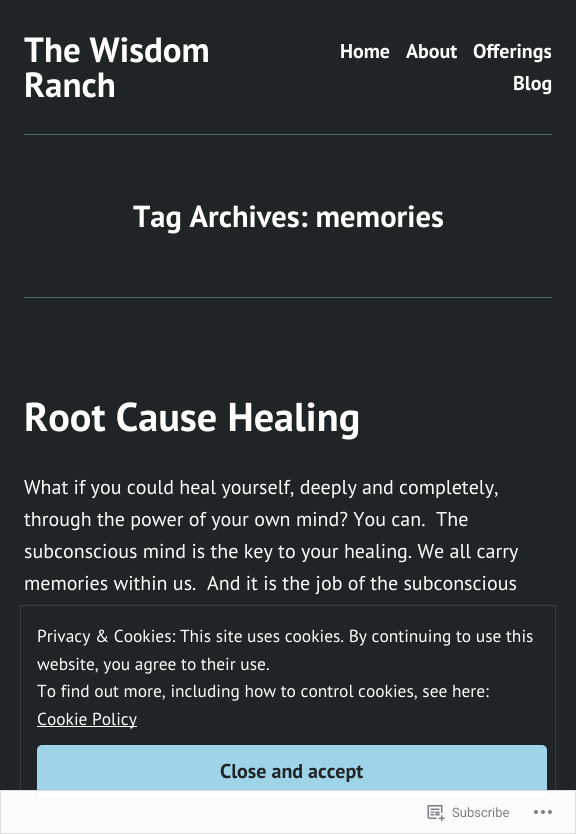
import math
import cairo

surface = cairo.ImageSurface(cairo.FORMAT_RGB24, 576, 834)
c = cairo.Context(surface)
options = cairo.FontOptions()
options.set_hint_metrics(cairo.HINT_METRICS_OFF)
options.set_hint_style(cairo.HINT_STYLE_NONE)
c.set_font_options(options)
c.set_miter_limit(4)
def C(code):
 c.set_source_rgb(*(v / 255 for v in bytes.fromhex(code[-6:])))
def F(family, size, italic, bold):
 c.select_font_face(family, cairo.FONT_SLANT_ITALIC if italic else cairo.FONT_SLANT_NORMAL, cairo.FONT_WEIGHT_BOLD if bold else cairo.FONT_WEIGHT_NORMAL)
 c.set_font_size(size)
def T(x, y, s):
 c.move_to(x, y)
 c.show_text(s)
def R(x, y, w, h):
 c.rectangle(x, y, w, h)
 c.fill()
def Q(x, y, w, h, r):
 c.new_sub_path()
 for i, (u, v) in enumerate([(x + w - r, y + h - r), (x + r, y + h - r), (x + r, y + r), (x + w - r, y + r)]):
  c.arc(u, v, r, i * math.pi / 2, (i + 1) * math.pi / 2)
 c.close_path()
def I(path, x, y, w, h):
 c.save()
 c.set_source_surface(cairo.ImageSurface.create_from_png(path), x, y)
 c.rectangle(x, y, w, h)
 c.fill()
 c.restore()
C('1f2527')
c.paint()
F('PT Sans',35,0,1)
C('ffffff')
T(24,62,'The Wisdom')
T(24,97,'Ranch')
F('PT Sans',20,0,1)
T(340,58,'Home')
T(406,58,'About')
T(473,58,'Offerings')
T(513,90,'Blog')
C('4b666e')
R(24,134,528,1)
F('PT Sans',30.5,0,1)
C('ffffff')
T(133,227,'Tag Archives: memories')
C('4b666e')
R(24,297,528,1)
F('PT Sans',40.25,0,1)
C('ffffff')
T(24,431,'Root Cause Healing')
F('PT Sans',20,0,0)
T(24,494,'What if you could heal yourself, deeply and completely,')
T(24,526,'through the power of your own mind? You can.  The')
T(24,558,'subconscious mind is the key to your healing. We all carry')
T(24,590,'memories within us.  And it is the job of the subconscious')
c.rectangle(20.5,605.5,535,208)
C('364043')
c.set_line_width(1)
c.stroke()
F('PT Sans',17.4,0,0)
C('ffffff')
T(37,642,'Privacy & Cookies: This site uses cookies. By continuing to use this')
T(37,670,'website, you agree to their use.')
T(37,697,'To find out more, including how to control cookies, see here:')
R(37,726,100,1)
T(37,725,'Cookie Policy')
C('9fd3e8')
Q(37,745,510,52,5)
c.fill()
F('PT Sans',20,0,1)
C('1f2527')
T(220,778,'Close and accept')
c.set_source_rgba(1,1,1,0.98)
R(0,790,576,44)
c.rectangle(.5,790.5,575,43)
c.set_source_rgba(0.863,0.863,0.871,0.98)
c.stroke()
I('1.png',427,805,18,17)
F('Roboto',13,0,0)
C('7b7f84')
T(452,817,'Subscribe')
I('2.png',534,810,18,4)
surface.write_to_png('o.png')
